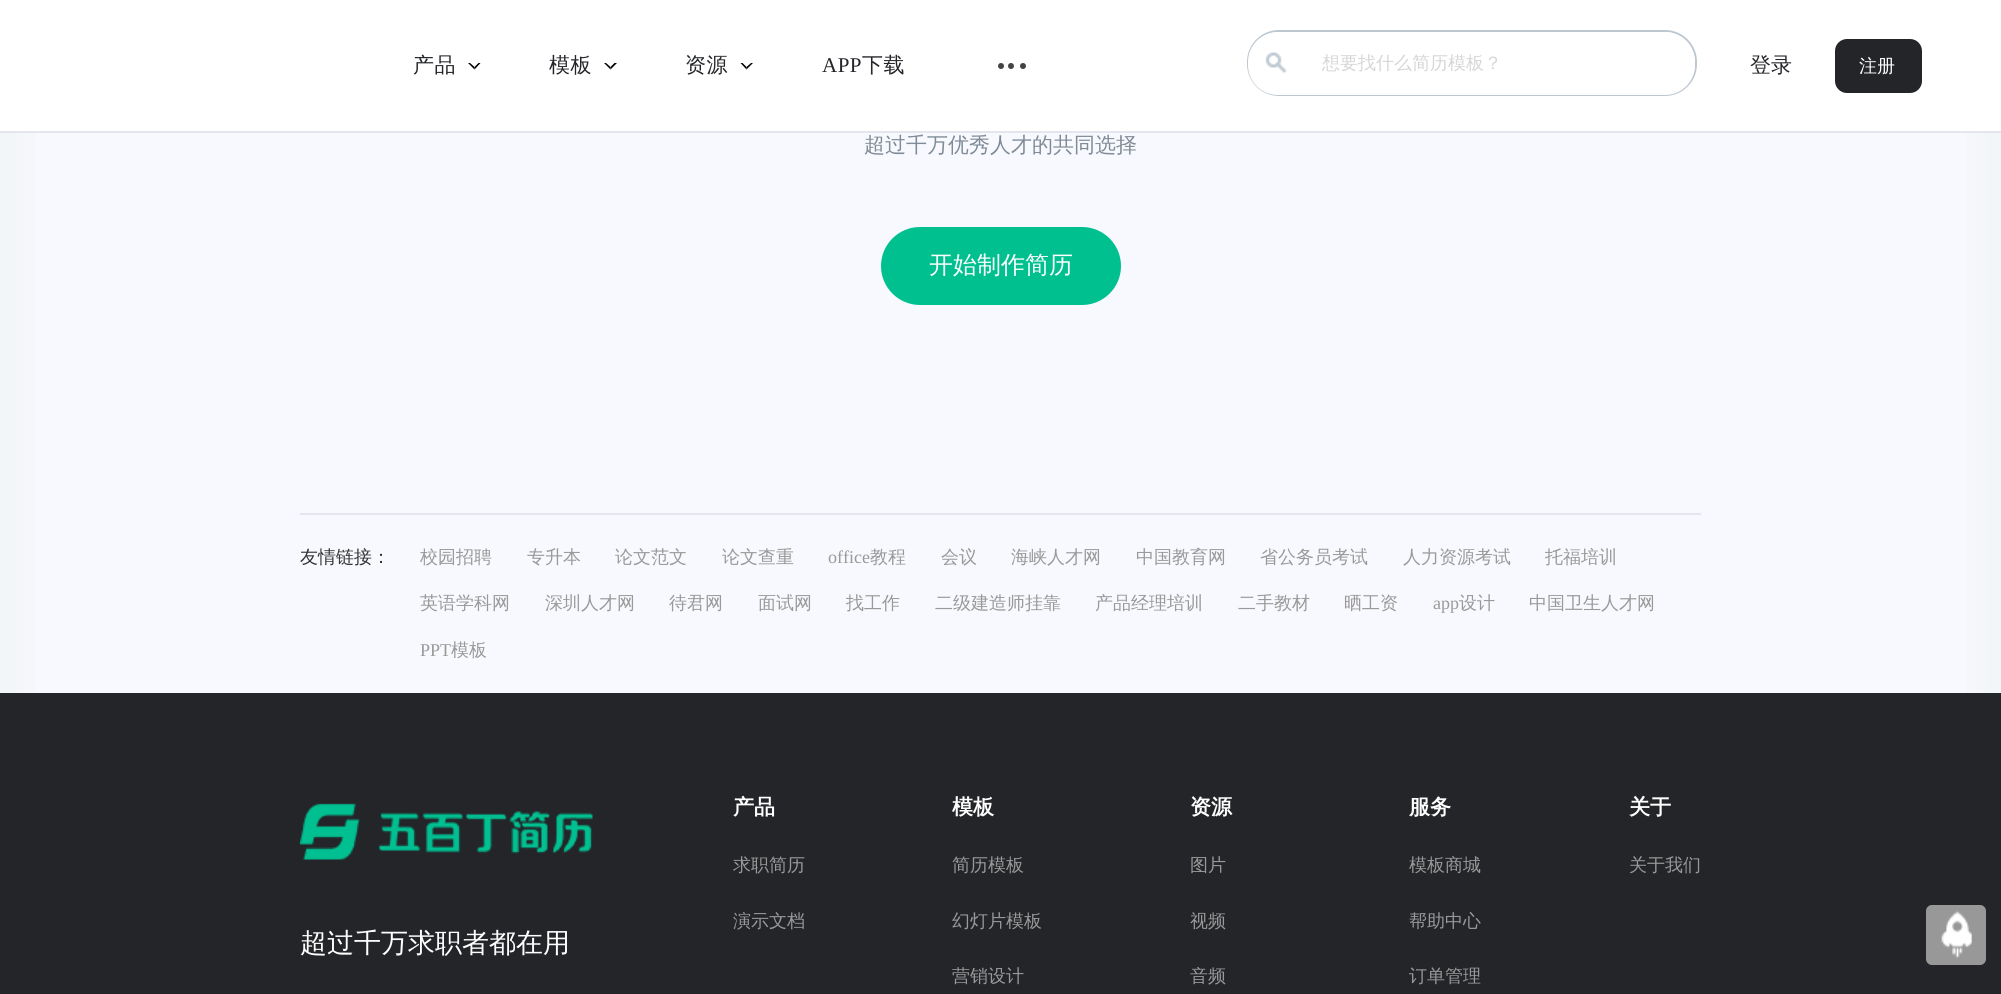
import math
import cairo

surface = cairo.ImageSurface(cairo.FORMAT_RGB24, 2001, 994)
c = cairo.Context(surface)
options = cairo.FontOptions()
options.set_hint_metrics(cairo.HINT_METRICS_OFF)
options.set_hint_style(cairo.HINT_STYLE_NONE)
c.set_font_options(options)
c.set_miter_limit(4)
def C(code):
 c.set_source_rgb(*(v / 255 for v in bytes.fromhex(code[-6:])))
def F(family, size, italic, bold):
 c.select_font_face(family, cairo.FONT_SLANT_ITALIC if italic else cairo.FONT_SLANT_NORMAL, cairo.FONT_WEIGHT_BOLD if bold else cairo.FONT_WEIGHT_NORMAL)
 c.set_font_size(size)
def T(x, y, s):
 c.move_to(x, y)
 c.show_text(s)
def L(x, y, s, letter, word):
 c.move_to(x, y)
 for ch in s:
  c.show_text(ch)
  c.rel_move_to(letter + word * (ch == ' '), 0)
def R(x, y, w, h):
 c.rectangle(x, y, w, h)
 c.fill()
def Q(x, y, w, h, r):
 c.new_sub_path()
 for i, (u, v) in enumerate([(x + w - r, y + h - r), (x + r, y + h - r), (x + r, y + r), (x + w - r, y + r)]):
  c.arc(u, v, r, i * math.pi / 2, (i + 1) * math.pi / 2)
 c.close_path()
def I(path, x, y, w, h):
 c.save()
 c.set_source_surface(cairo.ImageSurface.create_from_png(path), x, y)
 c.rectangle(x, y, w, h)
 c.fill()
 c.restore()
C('f8f9fe')
c.paint()
C('ffffff')
R(0,0,2001,131)
F('WenQuanYi Zen Hei Medium',21,0,0)
C('242529')
L(413,72,'产品',.5,0)
C('000000')
c.new_path()
c.move_to(480.5,63)
c.line_to(474.5,69.5)
c.line_to(474.5,67)
c.line_to(478.5,63)
c.close_path()
c.fill()
c.new_path()
c.move_to(474.5,69.5)
c.line_to(468,63)
c.line_to(470,63)
c.line_to(474.5,67)
c.close_path()
c.fill()
C('242529')
L(549,72,'模板',.5,0)
C('000000')
c.new_path()
c.move_to(617,63)
c.line_to(610.5,69.5)
c.line_to(610.5,67)
c.line_to(614.5,63)
c.close_path()
c.fill()
c.new_path()
c.move_to(610.5,69.5)
c.line_to(604,63)
c.line_to(606,63)
c.line_to(610.5,67)
c.close_path()
c.fill()
C('242529')
L(685,72,'资源',.5,0)
C('000000')
c.new_path()
c.move_to(753,63)
c.line_to(746.5,69.5)
c.line_to(746.5,67)
c.line_to(751,63)
c.close_path()
c.fill()
c.new_path()
c.move_to(746.5,69.5)
c.line_to(740.5,63)
c.line_to(742.5,63)
c.line_to(746.5,67)
c.close_path()
c.fill()
F('Liberation Serif',21,0,0)
C('242529')
L(822,72,'APP',.5,0)
F('WenQuanYi Zen Hei Medium',21,0,0)
L(862,72,'下载',.5,0)
C('444444')
c.new_path()
c.arc(1001,66,3,0,2 * math.pi)
c.fill()
c.arc(1011,66,3,0,2 * math.pi)
c.fill()
c.arc(1023,66,3,0,2 * math.pi)
c.fill()
C('242529')
T(1750,72,'登录')
Q(1835,39,87,54,12)
c.fill()
F('WenQuanYi Zen Hei Medium',18,0,0)
C('ffffff')
T(1859,72,'注册')
C('e3e6ec')
R(0,131,2001,2)
Q(1248,31,448,64,31)
C('bdc7d0')
c.stroke()
C('ffffff')
Q(1248,32,447,63,30)
c.fill()
I('1.png',1265,52,22,22)
C('d6d6d6')
T(1322,69,'想要找什么简历模板？')
gradient = cairo.LinearGradient(0,497,101,497)
gradient.add_color_stop_rgba(.1,0.953,0.965,0.976,1)
gradient.add_color_stop_rgba(.4,0.965,0.969,0.988,1)
gradient.add_color_stop_rgba(.9,0.973,0.976,0.996,1)
c.set_source(gradient)
R(0,133,35,560)
gradient = cairo.LinearGradient(2001,497,1901,497)
gradient.add_color_stop_rgba(.1,0.953,0.965,0.976,1)
gradient.add_color_stop_rgba(.4,0.965,0.969,0.988,1)
gradient.add_color_stop_rgba(.9,0.973,0.976,0.996,1)
c.set_source(gradient)
R(1966,133,35,560)
F('WenQuanYi Zen Hei Medium',21,0,0)
C('7f8b96')
T(864,152,'超过千万优秀人才的共同选择')
C('00c090')
Q(881,227,240,78,39)
c.fill()
F('WenQuanYi Zen Hei Medium',24,0,0)
C('ffffff')
T(929,273,'开始制作简历')
C('e3e6ec')
R(300,513,1401,2)
F('WenQuanYi Zen Hei Medium',18,0,0)
C('333333')
T(300,563,'友情链接：')
C('999999')
T(420,563,'校园招聘')
T(527,563,'专升本')
T(615,563,'论文范文')
T(722,563,'论文查重')
F('Liberation Serif',18,0,0)
T(828,563,'office')
F('WenQuanYi Zen Hei Medium',18,0,0)
T(870,563,'教程')
T(941,563,'会议')
T(1011,563,'海峡人才网')
T(1136,563,'中国教育网')
T(1260,563,'省公务员考试')
T(1403,563,'人力资源考试')
T(1545,563,'托福培训')
T(420,609,'英语学科网')
T(545,609,'深圳人才网')
T(669,609,'待君网')
T(758,609,'面试网')
T(846,609,'找工作')
T(935,609,'二级建造师挂靠')
T(1095,609,'产品经理培训')
T(1238,609,'二手教材')
T(1344,609,'晒工资')
F('Liberation Serif',18,0,0)
T(1433,609,'app')
F('WenQuanYi Zen Hei Medium',18,0,0)
T(1459,609,'设计')
T(1529,609,'中国卫生人才网')
F('Liberation Serif',18,0,0)
T(420,656,'PPT')
F('WenQuanYi Zen Hei Medium',18,0,0)
T(451,656,'模板')
C('242529')
R(0,693,2001,301)
I('2.png',300,803,293,57)
F('WenQuanYi Zen Hei Medium',27,0,0)
C('ffffff')
T(300,952,'超过千万求职者都在用')
F('WenQuanYi Zen Hei',21,0,1)
T(733,814,'产品')
F('WenQuanYi Zen Hei Medium',18,0,0)
C('999999')
T(733,871,'求职简历')
T(733,927,'演示文档')
F('WenQuanYi Zen Hei',21,0,1)
C('ffffff')
T(952,814,'模板')
F('WenQuanYi Zen Hei Medium',18,0,0)
C('999999')
T(952,871,'简历模板')
T(952,927,'幻灯片模板')
T(952,982,'营销设计')
F('WenQuanYi Zen Hei',21,0,1)
C('ffffff')
T(1190,814,'资源')
F('WenQuanYi Zen Hei Medium',18,0,0)
C('999999')
T(1190,871,'图片')
T(1190,927,'视频')
T(1190,982,'音频')
F('WenQuanYi Zen Hei',21,0,1)
C('ffffff')
T(1409,814,'服务')
F('WenQuanYi Zen Hei Medium',18,0,0)
C('999999')
T(1409,871,'模板商城')
T(1409,927,'帮助中心')
T(1409,982,'订单管理')
F('WenQuanYi Zen Hei',21,0,1)
C('ffffff')
T(1629,814,'关于')
F('WenQuanYi Zen Hei Medium',18,0,0)
C('999999')
T(1629,871,'关于我们')
C('989898')
Q(1926,905,60,60,6)
c.fill()
I('3.png',1941,911,31,47)
surface.write_to_png('o.png')
